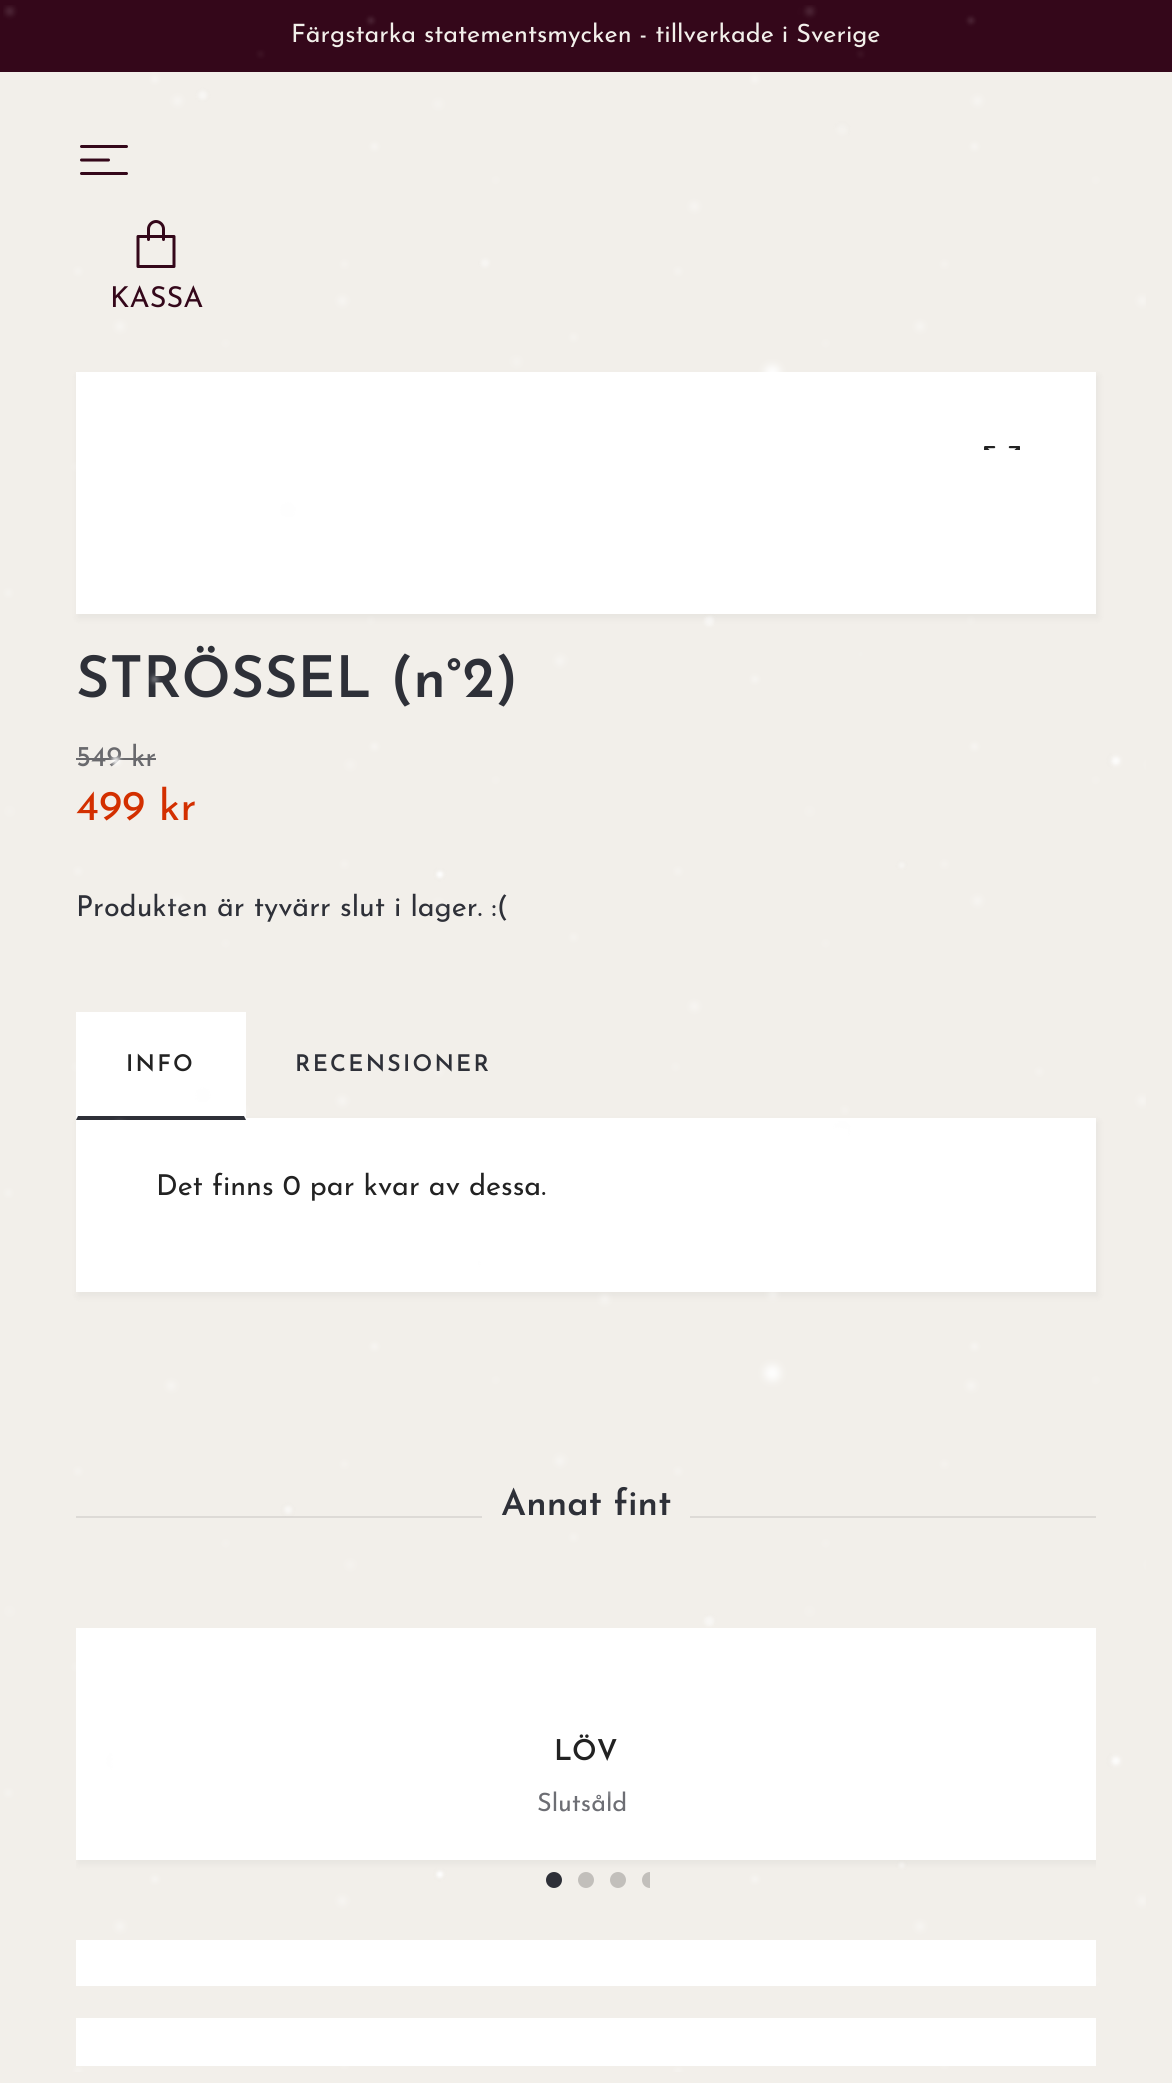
import math
import cairo

surface = cairo.ImageSurface(cairo.FORMAT_RGB24, 1172, 2083)
c = cairo.Context(surface)
options = cairo.FontOptions()
options.set_hint_metrics(cairo.HINT_METRICS_OFF)
options.set_hint_style(cairo.HINT_STYLE_NONE)
c.set_font_options(options)
c.set_miter_limit(4)
def C(code):
 c.set_source_rgb(*(v / 255 for v in bytes.fromhex(code[-6:])))
def F(family, size, italic, bold):
 c.select_font_face(family, cairo.FONT_SLANT_ITALIC if italic else cairo.FONT_SLANT_NORMAL, cairo.FONT_WEIGHT_BOLD if bold else cairo.FONT_WEIGHT_NORMAL)
 c.set_font_size(size)
def T(x, y, s):
 c.move_to(x, y)
 c.show_text(s)
def L(x, y, s, letter, word):
 c.move_to(x, y)
 for ch in s:
  c.show_text(ch)
  c.rel_move_to(letter + word * (ch == ' '), 0)
def R(x, y, w, h):
 c.rectangle(x, y, w, h)
 c.fill()
def Q(x, y, w, h, r):
 c.new_sub_path()
 for i, (u, v) in enumerate([(x + w - r, y + h - r), (x + r, y + h - r), (x + r, y + r), (x + w - r, y + r)]):
  c.arc(u, v, r, i * math.pi / 2, (i + 1) * math.pi / 2)
 c.close_path()
def S(x, y, w, h, r, blur, alpha):
 c.push_group_with_content(cairo.CONTENT_ALPHA)
 c.set_operator(cairo.OPERATOR_SOURCE)
 for i in range(15, -16, -2):
  e = blur * i / 6
  if min(w, h) + 2 * e > 0:
   c.set_source_rgba(0, 0, 0, alpha * math.erfc((i - 1) / 8.5) / 2)
   Q(x - e, y - e, w + 2 * e, h + 2 * e, max(0, min(r + e + blur * .6, min(w, h) / 2 + e)))
   c.fill()
 c.mask(c.pop_group())
def I(path, x, y, w, h):
 c.save()
 c.set_source_surface(cairo.ImageSurface.create_from_png(path), x, y)
 c.rectangle(x, y, w, h)
 c.fill()
 c.restore()
C('f2efea')
c.paint()
C('34071a')
R(0,0,1172,72)
F('Josefin Sans',25.2,0,0)
C('f2efea')
T(291,42,'Färgstarka statementsmycken - tillverkade i Sverige')
c.new_path()
c.move_to(81.5,146.5)
c.line_to(126.5,146.5)
c.move_to(81.5,160)
c.line_to(108.5,160)
c.move_to(81.5,173.5)
c.line_to(126.5,173.5)
C('34071a')
c.set_line_width(3)
c.set_line_cap(cairo.LINE_CAP_ROUND)
c.set_line_join(cairo.LINE_JOIN_ROUND)
c.stroke()
c.new_path()
c.move_to(138,236.5)
c.line_to(174,236.5)
c.line_to(174,266.5)
c.line_to(138,266.5)
c.close_path()
c.move_to(148.5,239.5)
c.line_to(148.5,229)
c.curve_to(148.5,225,152,221.5,156,221.5)
c.curve_to(160,221.5,163.5,225,163.5,229)
c.line_to(163.5,239.5)
c.stroke()
F('Josefin Sans',28.75,0,0)
T(110,307,'KASSA')
C('000000')
S(78,376,1020,242,0,4,.05)
C('ffffff')
R(76,372,1020,242)
I('2.png',984,446,36,4)
F('Josefin Sans SemiBold',57.5,0,0)
C('2e3038')
T(76,697,'STRÖSSEL (n°2)')
F('Josefin Sans',28.75,0,0)
C('69696d')
T(76,766,'549 kr')
R(76,758,80,2)
F('Josefin Sans',43,0,0)
C('d32f00')
T(76,820,'499 kr')
F('Josefin Sans',28.75,0,0)
C('2e3038')
T(76,916,'Produkten är tyvärr slut i lager. :(')
C('000000')
S(78,1122,1020,174,0,4,.05)
C('ffffff')
R(76,1012,170,106)
R(76,1118,1020,174)
C('2e3038')
c.new_path()
c.move_to(246,1120)
c.line_to(76,1120)
c.line_to(78,1116)
c.line_to(244,1116)
c.close_path()
c.fill()
F('Josefin Sans SemiBold',23,0,0)
C('222222')
L(126,1071,'INFO',2.25,0)
C('2e3038')
L(295,1071,'RECENSIONER',2.25,0)
F('Josefin Sans',28.75,0,0)
C('222222')
T(156,1195,'Det finns 0 par kvar av dessa.')
C('dddad6')
R(76,1516,1020,2)
C('f2efea')
R(482,1516,208,2)
F('Josefin Sans SemiBold',36,0,0)
C('2e3038')
T(501,1515,'Annat fint')
c.save()
c.rectangle(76,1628,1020,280)
c.clip()
C('000000')
S(78,1632,1020,232,0,4,.05)
c.restore()
C('ffffff')
R(76,1628,1020,232)
F('Josefin Sans SemiBold',28.75,0,0)
C('222222')
T(554,1760,'LÖV')
F('Josefin Sans',25.2,0,0)
C('6d6e74')
T(537,1811,'Slutsåld')
C('2e3038')
c.new_path()
c.arc(554,1880,8,0,2 * math.pi)
c.fill()
C('c2bfbb')
c.arc(586,1880,8,0,2 * math.pi)
c.fill()
c.arc(618,1880,8,0,2 * math.pi)
c.fill()
c.new_path()
c.move_to(650,1872)
c.line_to(650,1888)
c.curve_to(645.5,1888,642,1884.5,642,1880)
c.curve_to(642,1875.5,645.5,1872,650,1872)
c.close_path()
c.fill()
C('ffffff')
R(76,1940,1020,46)
R(76,2018,1020,48)
I('1.png',3,5,1143,2067)
surface.write_to_png('o.png')
